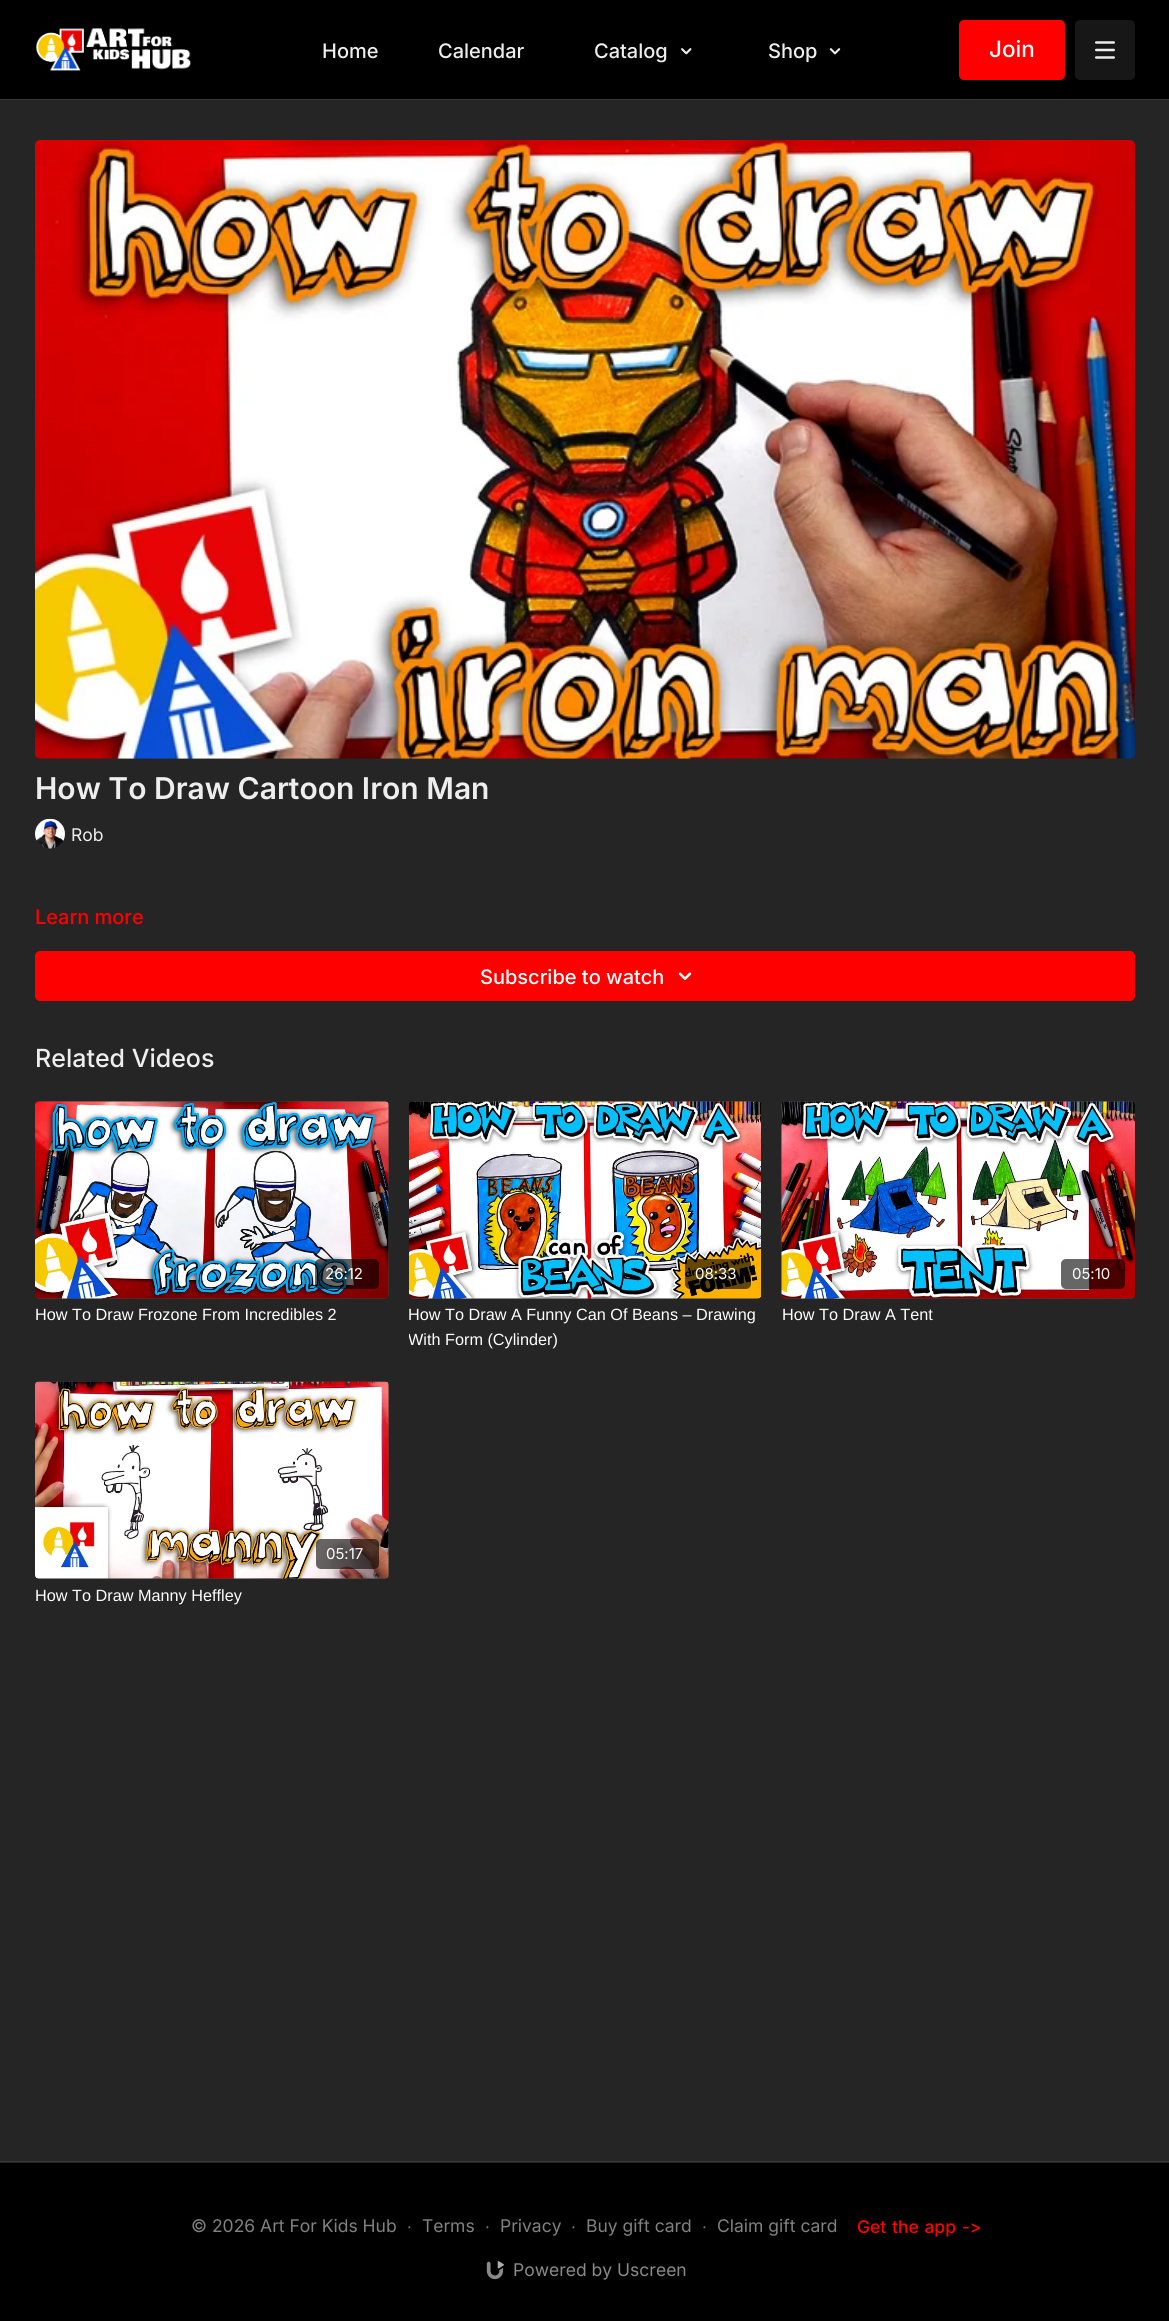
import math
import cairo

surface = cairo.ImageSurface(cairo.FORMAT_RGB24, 1169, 2321)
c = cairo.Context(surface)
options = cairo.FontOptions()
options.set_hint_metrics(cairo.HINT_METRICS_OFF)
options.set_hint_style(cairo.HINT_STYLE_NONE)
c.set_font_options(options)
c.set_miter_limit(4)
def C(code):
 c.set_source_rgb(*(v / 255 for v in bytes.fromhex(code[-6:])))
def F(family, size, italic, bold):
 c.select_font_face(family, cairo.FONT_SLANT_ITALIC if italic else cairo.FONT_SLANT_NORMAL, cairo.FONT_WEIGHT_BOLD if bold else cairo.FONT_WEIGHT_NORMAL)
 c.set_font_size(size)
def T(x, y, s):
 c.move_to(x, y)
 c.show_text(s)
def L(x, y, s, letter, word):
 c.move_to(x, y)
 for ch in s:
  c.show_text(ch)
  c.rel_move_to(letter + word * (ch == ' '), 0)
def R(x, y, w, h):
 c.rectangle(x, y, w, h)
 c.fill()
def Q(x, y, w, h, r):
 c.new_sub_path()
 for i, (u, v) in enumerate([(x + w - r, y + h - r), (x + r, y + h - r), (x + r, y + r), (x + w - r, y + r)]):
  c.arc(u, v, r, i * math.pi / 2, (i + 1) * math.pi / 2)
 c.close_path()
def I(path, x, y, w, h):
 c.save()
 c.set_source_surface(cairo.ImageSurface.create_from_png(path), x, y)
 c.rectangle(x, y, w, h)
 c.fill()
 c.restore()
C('252525')
c.paint()
C('000000')
R(0,0,1169,99)
C('373737')
R(0,99,1169,1)
I('1.png',36,28,155,43)
F('Inter Medium',20,0,0)
C('eeeeee')
T(322,58,'Home')
T(438,58,'Calendar')
T(594,58,'Catalog')
I('2.png',681,48,11,7)
T(768,58,'Shop')
I('3.png',829,48,12,7)
C('ff0000')
Q(959,20,106,60,5)
c.fill()
F('Inter Medium',22.5,0,0)
C('ffffff')
T(989,57,'Join')
C('171717')
Q(1075,20,60,60,5)
c.fill()
I('4.png',1095,41,20,18)
I('5.png',35,140,1100,619)
F('Inter SemiBold',30,0,0)
C('eeeeee')
T(35,799,'How To Draw Cartoon Iron Man')
I('6.png',35,818,30,31)
F('Inter',17.5,0,0)
T(71,841,'Rob')
F('Inter Medium',20,0,0)
C('ff0000')
T(35,924,'Learn more')
Q(35,951,1100,50,5)
c.fill()
C('ffffff')
T(480,984,'Subscribe to watch')
I('7.png',678,972,14,8)
F('Inter Medium',25,0,0)
C('eeeeee')
T(35,1067,'Related Videos')
gradient = cairo.LinearGradient(35,1200,389,1200)
gradient.add_color_stop_rgba(.08,0.255,0.255,0.255,1)
gradient.add_color_stop_rgba(.18,0.247,0.247,0.247,1)
gradient.add_color_stop_rgba(.33,0.239,0.239,0.239,1)
c.set_source(gradient)
Q(35,1101,354,198,5)
c.fill()
I('8.png',35,1101,354,198)
c.set_source_rgba(0,0,0,0.6)
Q(315,1259,64,30,5)
c.fill()
F('Inter',15,0,0)
C('ffffff')
T(325,1279,'26:12')
F('Liberation Sans',16.25,0,0)
T(35,1320,'How To Draw Frozone From Incredibles 2')
gradient = cairo.LinearGradient(409,1200,761,1200)
gradient.add_color_stop_rgba(.08,0.255,0.255,0.255,1)
gradient.add_color_stop_rgba(.18,0.247,0.247,0.247,1)
gradient.add_color_stop_rgba(.33,0.239,0.239,0.239,1)
c.set_source(gradient)
Q(409,1101,352,198,5)
c.fill()
I('9.png',409,1101,352,198)
c.set_source_rgba(0,0,0,0.6)
Q(685,1259,66,30,5)
c.fill()
F('Inter',15,0,0)
C('ffffff')
T(695,1279,'08:33')
F('Liberation Sans',16.25,0,0)
T(408,1320,'How To Draw A Funny Can Of Beans – Drawing')
c.save()
c.rectangle(409,1303,352,48)
c.clip()
T(408,1345,'With Form (Cylinder)')
c.restore()
gradient = cairo.LinearGradient(781,1200,1135,1200)
gradient.add_color_stop_rgba(.08,0.255,0.255,0.255,1)
gradient.add_color_stop_rgba(.18,0.247,0.247,0.247,1)
gradient.add_color_stop_rgba(.33,0.239,0.239,0.239,1)
c.set_source(gradient)
Q(781,1101,354,198,5)
c.fill()
I('10.png',781,1101,354,198)
c.set_source_rgba(0,0,0,0.6)
Q(1061,1259,64,30,5)
c.fill()
F('Inter',15,0,0)
C('ffffff')
T(1072,1279,'05:10')
F('Liberation Sans',16.25,0,0)
T(782,1320,'How To Draw A Tent')
gradient = cairo.LinearGradient(35,1480,389,1480)
gradient.add_color_stop_rgba(.08,0.255,0.255,0.255,1)
gradient.add_color_stop_rgba(.18,0.247,0.247,0.247,1)
gradient.add_color_stop_rgba(.33,0.239,0.239,0.239,1)
c.set_source(gradient)
Q(35,1381,354,198,5)
c.fill()
I('11.png',35,1381,354,198)
c.set_source_rgba(0,0,0,0.6)
Q(316,1539,63,30,5)
c.fill()
F('Inter',15,0,0)
C('ffffff')
T(326,1559,'05:17')
F('Liberation Sans',16.25,0,0)
T(35,1601,'How To Draw Manny Heffley')
C('000000')
R(0,2163,1169,158)
C('373737')
R(0,2161,1169,1)
F('Inter',17.5,0,0)
C('818181')
T(191,2232,'© 2026 Art For Kids Hub')
F('Liberation Sans',17.5,0,0)
T(407,2232,'∙')
F('Inter',17.5,0,0)
T(422,2232,'Terms')
F('Liberation Sans',17.5,0,0)
T(485,2232,'∙')
F('Inter',17.5,0,0)
T(500,2232,'Privacy')
F('Liberation Sans',17.5,0,0)
T(571,2232,'∙')
F('Inter',17.5,0,0)
T(586,2232,'Buy gift card')
F('Liberation Sans',17.5,0,0)
T(702,2232,'∙')
F('Inter',17.5,0,0)
T(717,2232,'Claim gift card')
F('Inter Medium',17.5,0,0)
C('ff0000')
L(857,2233,'Get the app ->',0,1)
I('12.png',486,2261,18,19)
F('Inter',17.5,0,0)
C('8a8a8a')
T(513,2276,'Powered by Uscreen')
surface.write_to_png('o.png')
